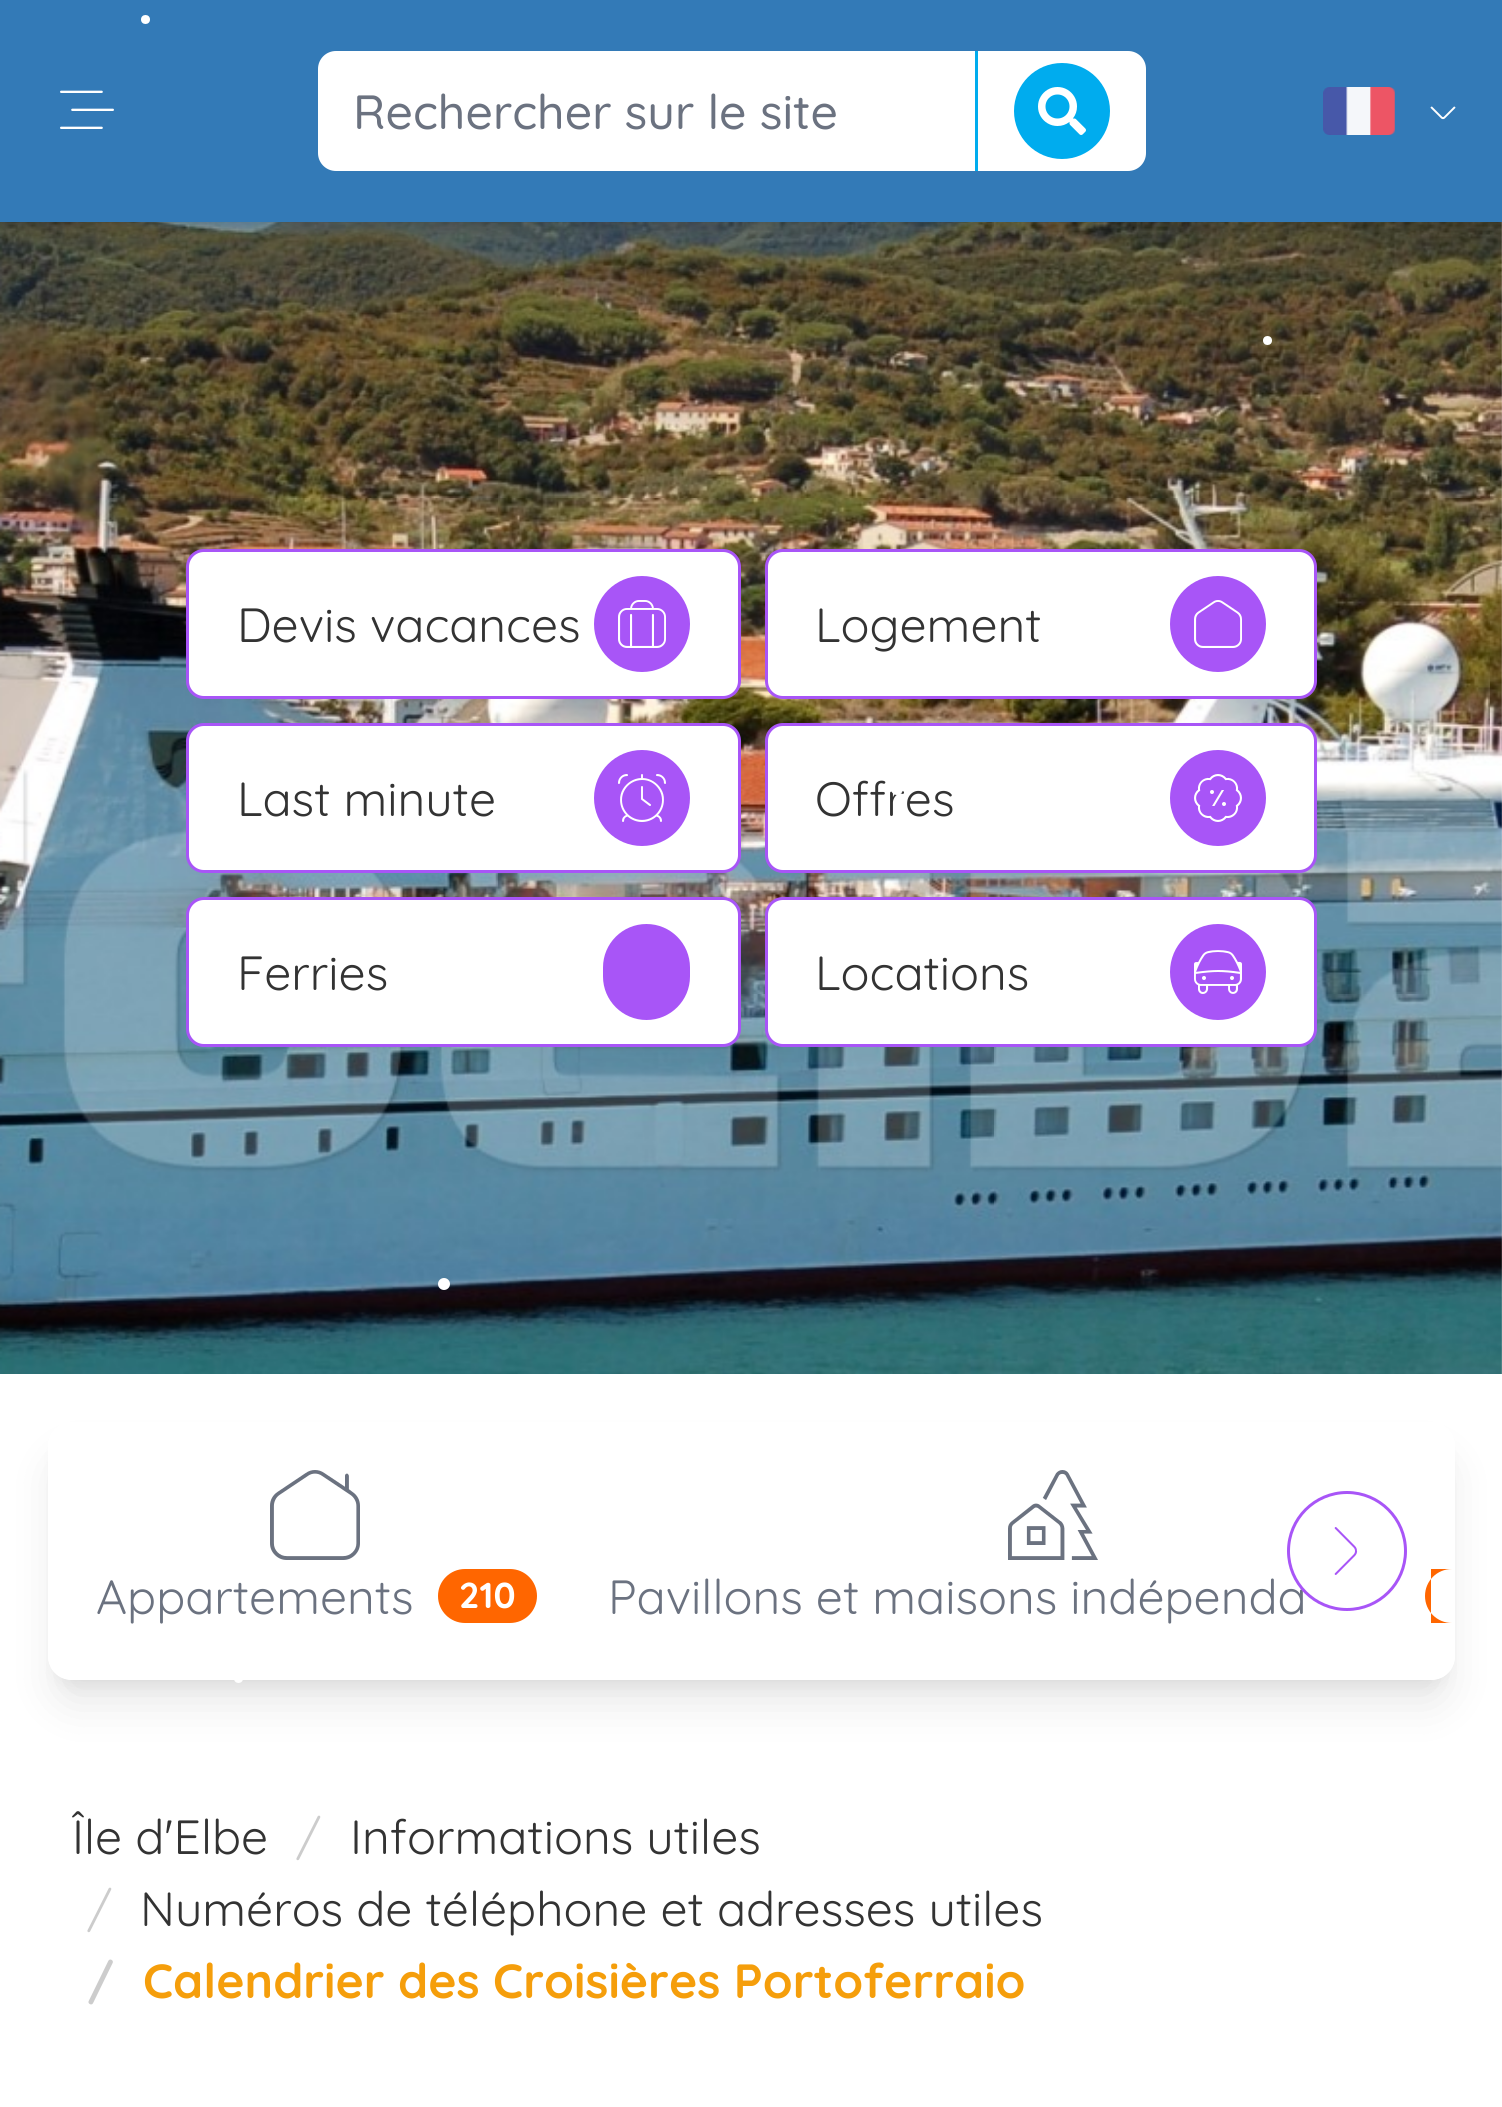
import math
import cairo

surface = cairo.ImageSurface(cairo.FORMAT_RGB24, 1502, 2107)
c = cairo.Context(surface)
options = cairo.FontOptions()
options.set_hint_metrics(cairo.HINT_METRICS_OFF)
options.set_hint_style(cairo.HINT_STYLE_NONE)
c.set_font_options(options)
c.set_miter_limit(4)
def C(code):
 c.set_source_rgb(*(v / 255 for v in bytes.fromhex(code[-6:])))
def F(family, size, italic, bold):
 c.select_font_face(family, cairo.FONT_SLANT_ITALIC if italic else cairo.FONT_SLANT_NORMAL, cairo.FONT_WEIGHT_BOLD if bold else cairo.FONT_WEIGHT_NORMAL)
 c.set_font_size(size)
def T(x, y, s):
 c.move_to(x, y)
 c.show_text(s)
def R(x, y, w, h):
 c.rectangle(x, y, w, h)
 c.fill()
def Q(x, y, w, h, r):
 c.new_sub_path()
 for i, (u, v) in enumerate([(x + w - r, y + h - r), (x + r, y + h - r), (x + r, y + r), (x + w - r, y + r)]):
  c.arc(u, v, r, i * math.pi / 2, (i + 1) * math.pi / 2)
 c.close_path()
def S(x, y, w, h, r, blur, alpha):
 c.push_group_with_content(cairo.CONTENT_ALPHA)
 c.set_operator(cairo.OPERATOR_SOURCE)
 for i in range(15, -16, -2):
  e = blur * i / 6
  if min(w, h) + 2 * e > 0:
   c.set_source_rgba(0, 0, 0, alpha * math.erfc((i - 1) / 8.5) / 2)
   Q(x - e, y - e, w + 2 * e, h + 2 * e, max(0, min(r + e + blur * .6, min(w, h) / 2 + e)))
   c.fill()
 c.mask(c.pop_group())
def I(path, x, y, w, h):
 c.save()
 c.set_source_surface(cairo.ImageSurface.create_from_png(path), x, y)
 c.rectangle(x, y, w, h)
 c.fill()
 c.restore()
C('ffffff')
c.paint()
I('5.png',0,222,1502,1152)
C('000000')
S(6,12,1491,210,0,6,.1)
S(3,15,1497,216,0,9,.1)
C('337ab7')
R(0,0,1502,222)
C('ffffff')
c.arc(145.5,19.5,4.5,0,2 * math.pi)
c.fill()
I('1.png',60,90,54,39)
c.new_path()
c.move_to(336,51)
c.line_to(975,51)
c.line_to(975,171)
c.line_to(336,171)
c.curve_to(326,171,318,163,318,153)
c.line_to(318,69)
c.curve_to(318,59,326,51,336,51)
c.close_path()
c.fill()
F('Quicksand Medium',48,0,0)
C('6b7280')
T(353,129,'Rechercher sur le site')
C('ffffff')
c.new_path()
c.move_to(978,51)
c.line_to(1128,51)
c.curve_to(1138,51,1146,59,1146,69)
c.line_to(1146,153)
c.curve_to(1146,163,1138,171,1128,171)
c.line_to(978,171)
c.close_path()
c.fill()
C('00acee')
R(975,51,3,120)
c.arc(1062,111,48,0,2 * math.pi)
c.fill()
I('2.png',1038,87,48,48)
I('3.png',1323,87,72,48)
I('4.png',1430,106,26,14)
C('ffffff')
Q(187.5,550.5,552,147,16.5)
c.fill_preserve()
C('a855f7')
c.set_line_width(3)
c.stroke()
F('Quicksand',48,0,0)
C('333333')
T(237,642,'Devis vacances')
C('a855f7')
c.new_path()
c.arc(642,624,48,0,2 * math.pi)
c.fill()
I('6.png',618,600,48,48)
C('ffffff')
Q(766.5,550.5,549,147,16.5)
c.fill_preserve()
C('a855f7')
c.stroke()
C('333333')
T(815,642,'Logement')
C('a855f7')
c.new_path()
c.arc(1218,624,48,0,2 * math.pi)
c.fill()
I('7.png',1194,600,48,48)
C('ffffff')
Q(187.5,724.5,552,147,16.5)
c.fill_preserve()
C('a855f7')
c.stroke()
C('333333')
T(237,816,'Last minute')
C('a855f7')
c.new_path()
c.arc(642,798,48,0,2 * math.pi)
c.fill()
I('8.png',618,774,48,48)
C('ffffff')
Q(766.5,724.5,549,147,16.5)
c.fill_preserve()
C('a855f7')
c.stroke()
C('333333')
T(815,816,'Offres')
C('a855f7')
c.new_path()
c.arc(1218,798,48,0,2 * math.pi)
c.fill()
I('9.png',1194,774,48,48)
C('ffffff')
Q(187.5,898.5,552,147,16.5)
c.fill_preserve()
C('a855f7')
c.stroke()
C('333333')
T(237,990,'Ferries')
C('a855f7')
Q(603,924,87,96,43.5)
c.fill()
C('ffffff')
Q(766.5,898.5,549,147,16.5)
c.fill_preserve()
C('a855f7')
c.stroke()
C('333333')
T(815,990,'Locations')
C('a855f7')
c.new_path()
c.arc(1218,972,48,0,2 * math.pi)
c.fill()
I('10.png',1194,950,48,44)
c.save()
c.set_fill_rule(cairo.FILL_RULE_EVEN_ODD)
c.new_path()
c.move_to(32,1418)
c.line_to(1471,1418)
c.line_to(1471,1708)
c.line_to(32,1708)
c.close_path()
c.move_to(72,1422)
c.line_to(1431,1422)
c.curve_to(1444.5,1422,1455,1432.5,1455,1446)
c.line_to(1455,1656)
c.curve_to(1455,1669.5,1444.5,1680,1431,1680)
c.line_to(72,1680)
c.curve_to(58.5,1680,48,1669.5,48,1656)
c.line_to(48,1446)
c.curve_to(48,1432.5,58.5,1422,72,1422)
c.close_path()
c.clip()
C('000000')
S(60,1446,1383,234,12,9,.1)
c.restore()
c.save()
c.set_fill_rule(cairo.FILL_RULE_EVEN_ODD)
c.new_path()
c.move_to(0,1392)
c.line_to(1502,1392)
c.line_to(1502,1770)
c.line_to(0,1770)
c.close_path()
c.move_to(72,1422)
c.line_to(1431,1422)
c.curve_to(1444.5,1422,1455,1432.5,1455,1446)
c.line_to(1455,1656)
c.curve_to(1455,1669.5,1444.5,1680,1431,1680)
c.line_to(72,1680)
c.curve_to(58.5,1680,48,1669.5,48,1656)
c.line_to(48,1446)
c.curve_to(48,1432.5,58.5,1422,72,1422)
c.close_path()
c.clip()
C('000000')
S(57,1461,1389,240,15,22.5,.1)
c.restore()
I('11.png',270,1470,90,90)
C('6b7280')
T(96,1614,'Appartements')
C('ff6600')
Q(438,1569,99,54,27)
c.fill()
F('Quicksand',36,0,1)
C('ffffff')
T(459,1608,'210')
I('12.png',1008,1470,90,90)
F('Quicksand',48,0,0)
C('6b7280')
T(608,1614,'Pavillons et maisons indépenda')
C('ff6600')
c.new_path()
c.move_to(1452,1569)
c.line_to(1431,1569)
c.line_to(1431,1623)
c.line_to(1452,1623)
c.curve_to(1437,1623,1425,1611,1425,1596)
c.curve_to(1425,1581,1437,1569,1452,1569)
c.close_path()
c.fill()
C('ffffff')
c.arc(1347,1551,58.5,0,2 * math.pi)
c.fill_preserve()
C('a855f7')
c.stroke()
I('13.png',1334,1527,24,48)
C('333333')
T(72,1854,'Île d\'Elbe')
C('cccccc')
T(296,1854,'/')
C('333333')
T(350,1854,'Informations utiles')
C('cccccc')
T(87,1926,'/')
C('333333')
T(140,1926,'Numéros de téléphone et adresses utiles')
F('Quicksand',48,0,1)
C('cccccc')
T(87,1998,'/')
C('f59e0b')
T(143,1998,'Calendrier des Croisières Portoferraio')
C('ffffff')
c.new_path()
c.arc(1267.5,340.5,4.5,0,2 * math.pi)
c.fill()
c.arc(897,789,6,0,2 * math.pi)
c.fill()
c.arc(444,1284,6,0,2 * math.pi)
c.fill()
c.arc(238.5,1678.5,4.5,0,2 * math.pi)
c.fill()
surface.write_to_png('o.png')
